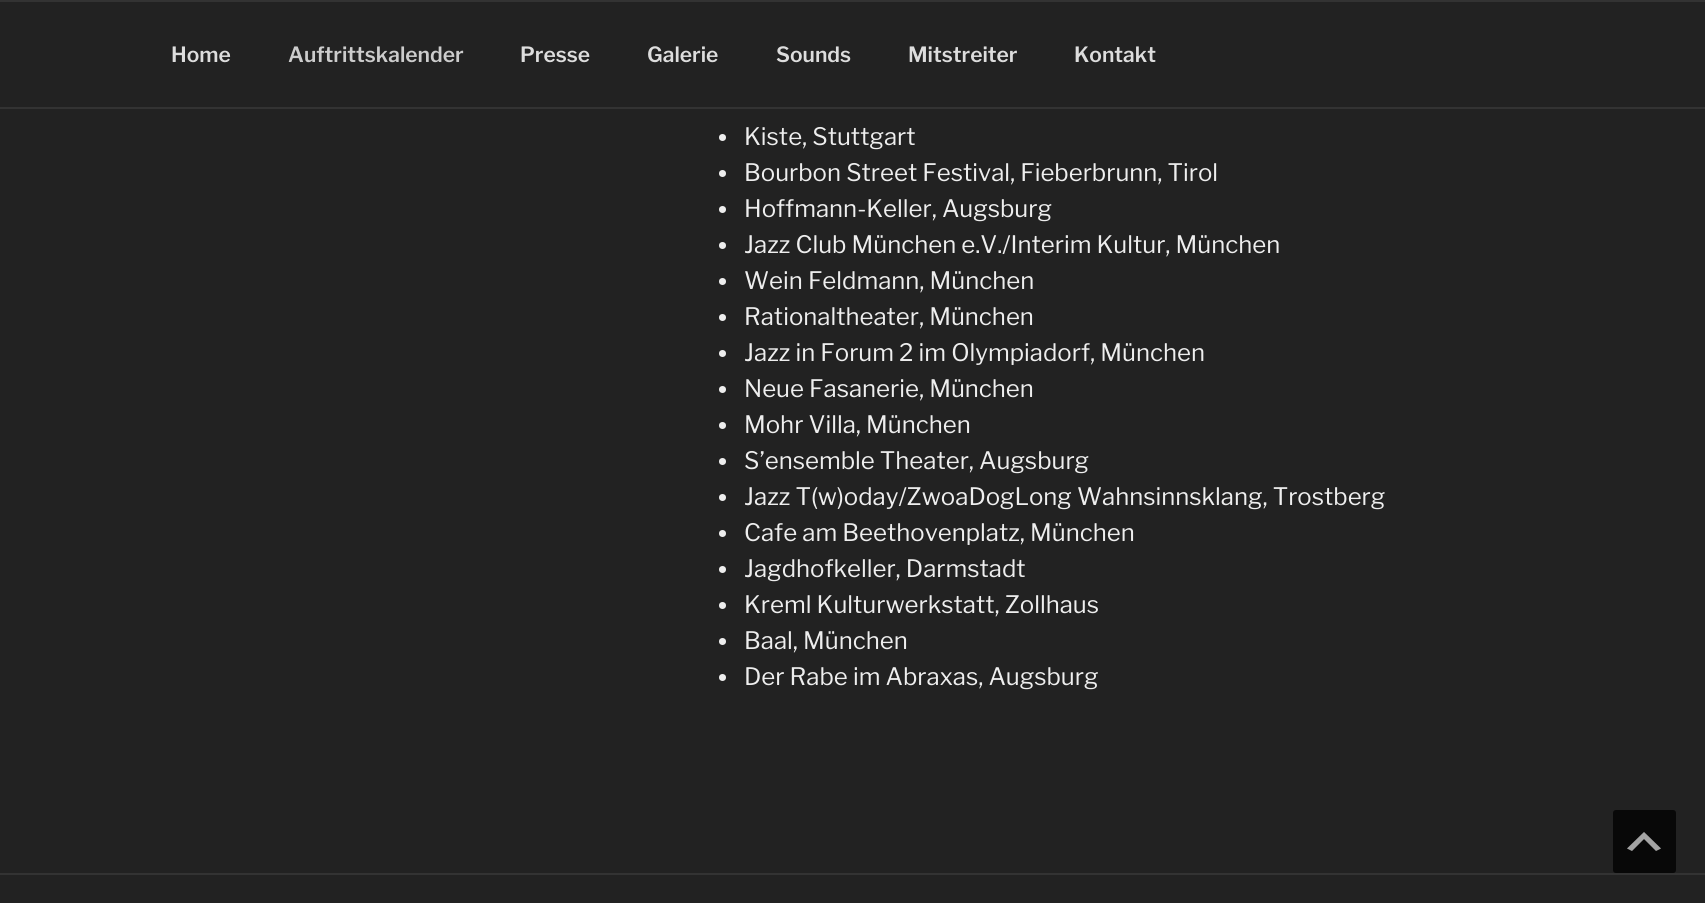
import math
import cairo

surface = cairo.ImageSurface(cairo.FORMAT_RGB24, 1705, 903)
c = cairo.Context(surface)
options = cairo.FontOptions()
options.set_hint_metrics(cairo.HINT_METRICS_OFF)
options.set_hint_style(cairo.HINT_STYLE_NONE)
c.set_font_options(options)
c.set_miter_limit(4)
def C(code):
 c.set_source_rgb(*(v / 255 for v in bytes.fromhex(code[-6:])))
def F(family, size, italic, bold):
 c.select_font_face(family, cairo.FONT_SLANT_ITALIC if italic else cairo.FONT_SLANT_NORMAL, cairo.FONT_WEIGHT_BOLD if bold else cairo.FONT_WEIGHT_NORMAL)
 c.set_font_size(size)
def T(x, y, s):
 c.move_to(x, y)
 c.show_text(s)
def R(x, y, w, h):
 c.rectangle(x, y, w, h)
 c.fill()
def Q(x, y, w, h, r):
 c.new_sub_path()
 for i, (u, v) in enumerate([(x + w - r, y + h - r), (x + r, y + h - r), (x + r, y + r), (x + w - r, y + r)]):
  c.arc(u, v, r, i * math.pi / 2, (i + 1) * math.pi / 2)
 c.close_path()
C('222222')
c.paint()
C('333333')
R(0,0,1705,2)
R(0,107,1705,2)
F('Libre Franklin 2 Thin',21,0,0)
C('dddddd')
T(171,62,'Home')
C('cccccc')
T(288,62,'Auftrittskalender')
C('dddddd')
T(520,62,'Presse')
T(647,62,'Galerie')
T(776,62,'Sounds')
T(908,62,'Mitstreiter')
T(1074,62,'Kontakt')
C('eeeeee')
c.new_path()
c.arc(722.5,137.5,3.5,0,2 * math.pi)
c.fill()
F('Libre Franklin Thin',24,0,0)
T(744,145,'Kiste, Stuttgart')
c.new_path()
c.arc(722.5,173.5,3.5,0,2 * math.pi)
c.fill()
T(744,181,'Bourbon Street Festival, Fieberbrunn, Tirol')
c.new_path()
c.arc(722.5,209.5,3.5,0,2 * math.pi)
c.fill()
T(744,217,'Hoffmann-Keller, Augsburg')
c.new_path()
c.arc(722.5,245.5,3.5,0,2 * math.pi)
c.fill()
T(744,253,'Jazz Club München e.V./Interim Kultur, München')
c.new_path()
c.arc(722.5,281.5,3.5,0,2 * math.pi)
c.fill()
T(744,289,'Wein Feldmann, München')
c.new_path()
c.arc(722.5,317.5,3.5,0,2 * math.pi)
c.fill()
T(744,325,'Rationaltheater, München')
c.new_path()
c.arc(722.5,353.5,3.5,0,2 * math.pi)
c.fill()
T(744,361,'Jazz in Forum 2 im Olympiadorf, München')
c.new_path()
c.arc(722.5,389.5,3.5,0,2 * math.pi)
c.fill()
T(744,397,'Neue Fasanerie, München')
c.new_path()
c.arc(722.5,425.5,3.5,0,2 * math.pi)
c.fill()
T(744,433,'Mohr Villa, München')
c.new_path()
c.arc(722.5,461.5,3.5,0,2 * math.pi)
c.fill()
T(744,469,'S’ensemble Theater, Augsburg')
c.new_path()
c.arc(722.5,497.5,3.5,0,2 * math.pi)
c.fill()
T(744,505,'Jazz T(w)oday/ZwoaDogLong Wahnsinnsklang, Trostberg')
c.new_path()
c.arc(722.5,533.5,3.5,0,2 * math.pi)
c.fill()
T(744,541,'Cafe am Beethovenplatz, München')
c.new_path()
c.arc(722.5,569.5,3.5,0,2 * math.pi)
c.fill()
T(744,577,'Jagdhofkeller, Darmstadt')
c.new_path()
c.arc(722.5,605.5,3.5,0,2 * math.pi)
c.fill()
T(744,613,'Kreml Kulturwerkstatt, Zollhaus')
c.new_path()
c.arc(722.5,641.5,3.5,0,2 * math.pi)
c.fill()
T(744,649,'Baal, München')
c.new_path()
c.arc(722.5,677.5,3.5,0,2 * math.pi)
c.fill()
T(744,685,'Der Rabe im Abraxas, Augsburg')
C('333333')
R(0,873,1705,2)
C('111111')
Q(1613,810,63,63,3)
c.fill()
C('919191')
c.new_path()
c.move_to(1656,851)
c.line_to(1644,839)
c.line_to(1632,851)
c.line_to(1627,848.5)
c.line_to(1644,832)
c.line_to(1661,848.5)
c.close_path()
c.fill()
c.set_source_rgba(0,0,0,0.5)
Q(1613,810,63,63,3)
c.fill()
c.set_source_rgba(1,1,1,0.5)
c.new_path()
c.move_to(1656,851)
c.line_to(1644,839)
c.line_to(1632,851)
c.line_to(1627,848.5)
c.line_to(1644,832)
c.line_to(1661,848.5)
c.close_path()
c.fill()
surface.write_to_png('o.png')
